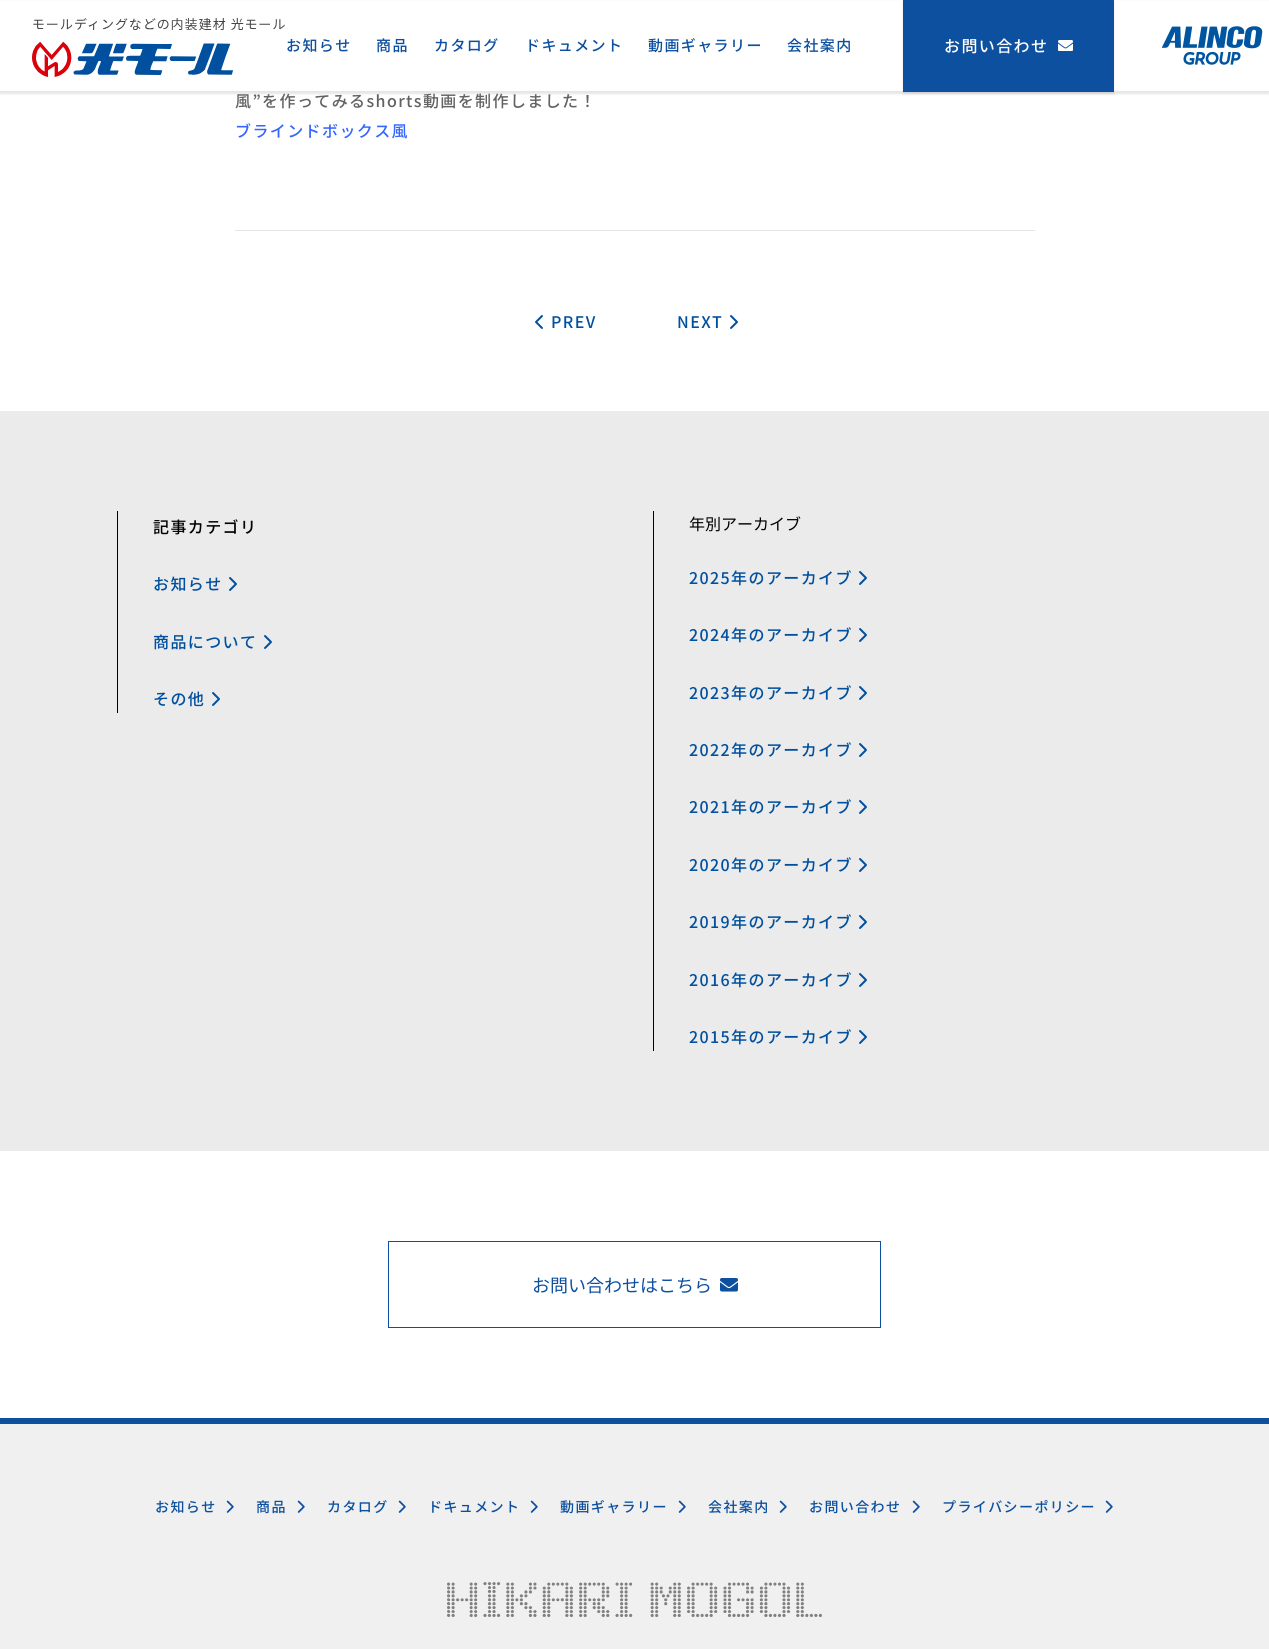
import math
import cairo

surface = cairo.ImageSurface(cairo.FORMAT_RGB24, 1269, 1649)
c = cairo.Context(surface)
options = cairo.FontOptions()
options.set_hint_metrics(cairo.HINT_METRICS_OFF)
options.set_hint_style(cairo.HINT_STYLE_NONE)
c.set_font_options(options)
c.set_miter_limit(4)
def C(code):
 c.set_source_rgb(*(v / 255 for v in bytes.fromhex(code[-6:])))
def F(family, size, italic, bold):
 c.select_font_face(family, cairo.FONT_SLANT_ITALIC if italic else cairo.FONT_SLANT_NORMAL, cairo.FONT_WEIGHT_BOLD if bold else cairo.FONT_WEIGHT_NORMAL)
 c.set_font_size(size)
def T(x, y, s):
 c.move_to(x, y)
 c.show_text(s)
def L(x, y, s, letter, word):
 c.move_to(x, y)
 for ch in s:
  c.show_text(ch)
  c.rel_move_to(letter + word * (ch == ' '), 0)
def R(x, y, w, h):
 c.rectangle(x, y, w, h)
 c.fill()
def Q(x, y, w, h, r):
 c.new_sub_path()
 for i, (u, v) in enumerate([(x + w - r, y + h - r), (x + r, y + h - r), (x + r, y + r), (x + w - r, y + r)]):
  c.arc(u, v, r, i * math.pi / 2, (i + 1) * math.pi / 2)
 c.close_path()
def S(x, y, w, h, r, blur, alpha):
 c.push_group_with_content(cairo.CONTENT_ALPHA)
 c.set_operator(cairo.OPERATOR_SOURCE)
 for i in range(15, -16, -2):
  e = blur * i / 6
  if min(w, h) + 2 * e > 0:
   c.set_source_rgba(0, 0, 0, alpha * math.erfc((i - 1) / 8.5) / 2)
   Q(x - e, y - e, w + 2 * e, h + 2 * e, max(0, min(r + e + blur * .6, min(w, h) / 2 + e)))
   c.fill()
 c.mask(c.pop_group())
def I(path, x, y, w, h):
 c.save()
 c.set_source_surface(cairo.ImageSurface.create_from_png(path), x, y)
 c.rectangle(x, y, w, h)
 c.fill()
 c.restore()
C('ffffff')
c.paint()
C('000000')
S(0,2,1269,92,0,1,.1)
C('ffffff')
R(0,1,1269,90)
C('e6e6e6')
R(0,91,1269,1)
I('1.png',32,18,253,59)
F('Noto Sans JP Medium',15,0,0)
C('0d509f')
L(286,51,'お知らせ',1.4,0)
L(376,51,'商品',1.4,0)
L(434,51,'カタログ',1.4,0)
L(525,51,'ドキュメント',1.4,0)
L(648,51,'動画ギャラリー',1.4,0)
L(787,51,'会社案内',1.4,0)
C('000000')
S(903,2,211,92,0,1,.1)
C('0d509f')
R(903,0,211,92)
F('Noto Sans JP Medium',16,0,0)
C('ffffff')
L(944,52,'お問い合わせ',1.4,0)
I('2.png',1058,40,15,11)
I('3.png',1161,26,102,39)
C('e5e5e5')
R(235,230,800,1)
C('626262')
L(235,107,'風”を作ってみるshorts動画を制作しました！',1.4,0)
C('3366ff')
L(235,137,'ブラインドボックス風',1.4,0)
I('4.png',535,315,8,14)
C('00509f')
L(551,328,'PREV',1.4,0)
L(677,328,'NEXT',1.4,0)
I('5.png',730,315,8,14)
C('ebebeb')
R(0,411,1269,740)
C('000000')
R(117,511,1,202)
L(153,533,'記事カテゴリ',1.4,0)
C('00509f')
L(153,590,'お知らせ',1.4,0)
I('6.png',229,577,8,14)
L(153,648,'商品について',1.4,0)
I('6.png',264,635,8,14)
L(153,705,'その他',1.4,0)
I('6.png',212,692,8,14)
C('000000')
R(653,511,1,540)
F('Noto Sans JP',16,0,0)
T(689,530,'年別アーカイブ')
F('Noto Sans JP Medium',16,0,0)
C('00509f')
L(689,584,'2025年のアーカイブ',1.4,0)
I('6.png',859,571,8,14)
L(689,641,'2024年のアーカイブ',1.4,0)
I('6.png',859,628,8,14)
L(689,699,'2023年のアーカイブ',1.4,0)
I('6.png',859,686,8,14)
L(689,756,'2022年のアーカイブ',1.4,0)
I('6.png',859,743,8,14)
L(689,813,'2021年のアーカイブ',1.4,0)
I('6.png',859,800,8,14)
L(689,871,'2020年のアーカイブ',1.4,0)
I('6.png',859,858,8,14)
L(689,928,'2019年のアーカイブ',1.4,0)
I('6.png',859,915,8,14)
L(689,986,'2016年のアーカイブ',1.4,0)
I('6.png',859,973,8,14)
L(689,1043,'2015年のアーカイブ',1.4,0)
I('6.png',859,1030,8,14)
c.rectangle(388.5,1241.5,492,86)
C('0d509f')
c.set_line_width(1)
c.stroke()
F('Noto Sans JP',18,0,0)
T(532,1292,'お問い合わせはこちら')
I('7.png',720,1278,18,14)
C('f0f0f0')
R(0,1424,1269,225)
C('0d509f')
R(0,1418,1269,6)
F('Noto Sans JP Medium',14,0,0)
L(155,1512,'お知らせ',1.4,0)
I('8.png',226,1500,8,13)
L(256,1512,'商品',1.4,0)
I('8.png',297,1500,8,13)
L(327,1512,'カタログ',1.4,0)
I('8.png',398,1500,8,13)
L(428,1512,'ドキュメント',1.4,0)
I('8.png',530,1500,8,13)
L(560,1512,'動画ギャラリー',1.4,0)
I('8.png',678,1500,8,13)
L(708,1512,'会社案内',1.4,0)
I('8.png',779,1500,8,13)
L(809,1512,'お問い合わせ',1.4,0)
I('8.png',912,1500,8,13)
L(942,1512,'プライバシーポリシー',1.4,0)
I('8.png',1105,1500,8,13)
I('9.png',447,1582,375,35)
surface.write_to_png('o.png')
